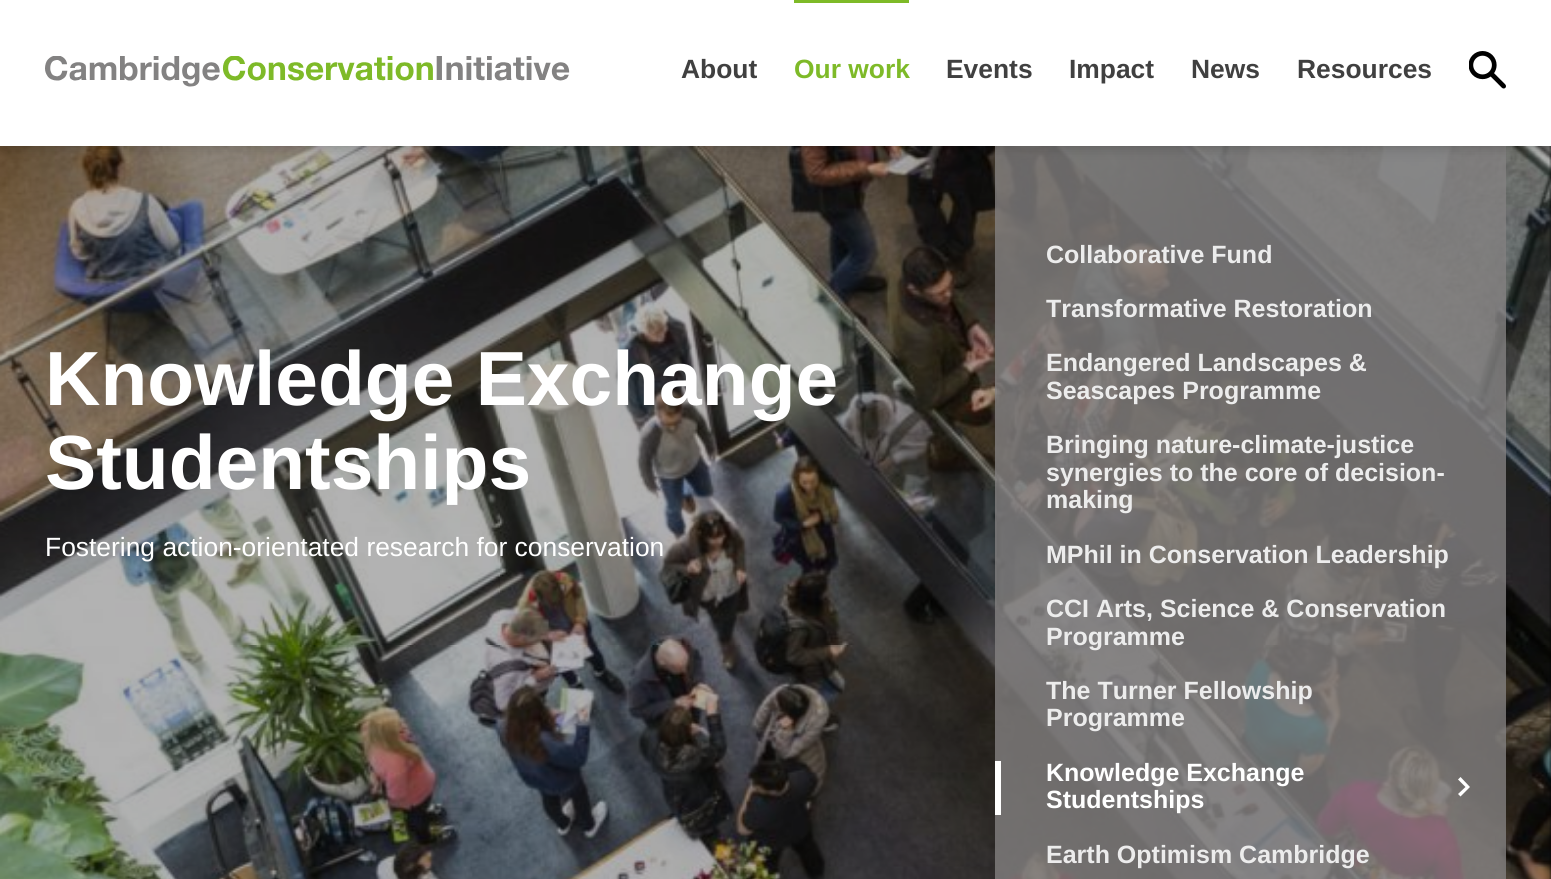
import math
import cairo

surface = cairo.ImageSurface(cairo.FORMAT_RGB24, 1551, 879)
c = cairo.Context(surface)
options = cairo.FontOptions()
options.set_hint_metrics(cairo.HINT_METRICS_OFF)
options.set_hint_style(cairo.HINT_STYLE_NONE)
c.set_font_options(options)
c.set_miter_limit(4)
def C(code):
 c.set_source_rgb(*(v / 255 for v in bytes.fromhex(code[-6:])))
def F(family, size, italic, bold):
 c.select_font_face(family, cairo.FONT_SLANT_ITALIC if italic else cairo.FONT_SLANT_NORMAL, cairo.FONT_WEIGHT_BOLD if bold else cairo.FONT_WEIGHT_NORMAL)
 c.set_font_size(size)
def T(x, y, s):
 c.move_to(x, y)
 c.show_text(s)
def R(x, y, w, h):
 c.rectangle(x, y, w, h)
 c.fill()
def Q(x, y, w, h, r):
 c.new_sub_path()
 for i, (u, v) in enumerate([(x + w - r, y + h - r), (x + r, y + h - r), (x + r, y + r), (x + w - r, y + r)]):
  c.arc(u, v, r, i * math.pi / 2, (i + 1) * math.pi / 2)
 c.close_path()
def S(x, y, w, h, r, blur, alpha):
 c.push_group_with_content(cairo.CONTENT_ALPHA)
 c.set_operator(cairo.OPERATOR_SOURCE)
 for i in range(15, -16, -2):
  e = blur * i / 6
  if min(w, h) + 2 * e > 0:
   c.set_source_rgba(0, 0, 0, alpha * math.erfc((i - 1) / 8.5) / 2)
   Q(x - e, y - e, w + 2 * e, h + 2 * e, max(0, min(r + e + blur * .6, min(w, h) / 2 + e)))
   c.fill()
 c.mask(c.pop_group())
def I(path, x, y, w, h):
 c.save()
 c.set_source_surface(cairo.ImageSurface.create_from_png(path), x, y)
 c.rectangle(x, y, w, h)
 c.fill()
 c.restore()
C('000000')
c.paint()
I('3.png',0,146,1551,733)
c.set_source_rgba(0.514,0.506,0.506,0.8)
R(995,146,511,733)
C('000000')
S(5,0,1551,146,0,7.5,.25)
C('ffffff')
R(0,0,1551,146)
I('1.png',45,56,525,31)
F('Liberation Sans',26.4,0,1)
C('404040')
T(681,78,'About')
C('7eba27')
R(794,0,115,3)
C('7eba28')
T(794,78,'Our work')
C('404040')
T(946,78,'Events')
T(1069,78,'Impact')
T(1191,78,'News')
T(1297,78,'Resources')
I('2.png',1469,51,37,38)
F('Liberation Sans',76.75,0,1)
C('ffffff')
T(45,405,'Knowledge Exchange')
T(45,489,'Studentships')
F('Liberation Sans',26.4,0,0)
T(45,556,'Fostering action-orientated research for conservation')
F('Liberation Sans',25,0,1)
C('ececec')
T(1046,263,'Collaborative Fund')
T(1046,317,'Transformative Restoration')
T(1046,371,'Endangered Landscapes &')
T(1046,399,'Seascapes Programme')
T(1046,453,'Bringing nature-climate-justice')
T(1046,481,'synergies to the core of decision-')
T(1046,508,'making')
T(1046,563,'MPhil in Conservation Leadership')
T(1046,617,'CCI Arts, Science & Conservation')
T(1046,645,'Programme')
T(1046,699,'The Turner Fellowship')
T(1046,726,'Programme')
C('ffffff')
c.new_path()
c.move_to(1460.5,777)
c.line_to(1458,779.5)
c.line_to(1465.5,787)
c.line_to(1458,794)
c.line_to(1460.5,796.5)
c.line_to(1470,787)
c.close_path()
c.fill()
R(995,761,6,54)
T(1046,781,'Knowledge Exchange')
T(1046,808,'Studentships')
C('ececec')
T(1046,863,'Earth Optimism Cambridge')
surface.write_to_png('o.png')
